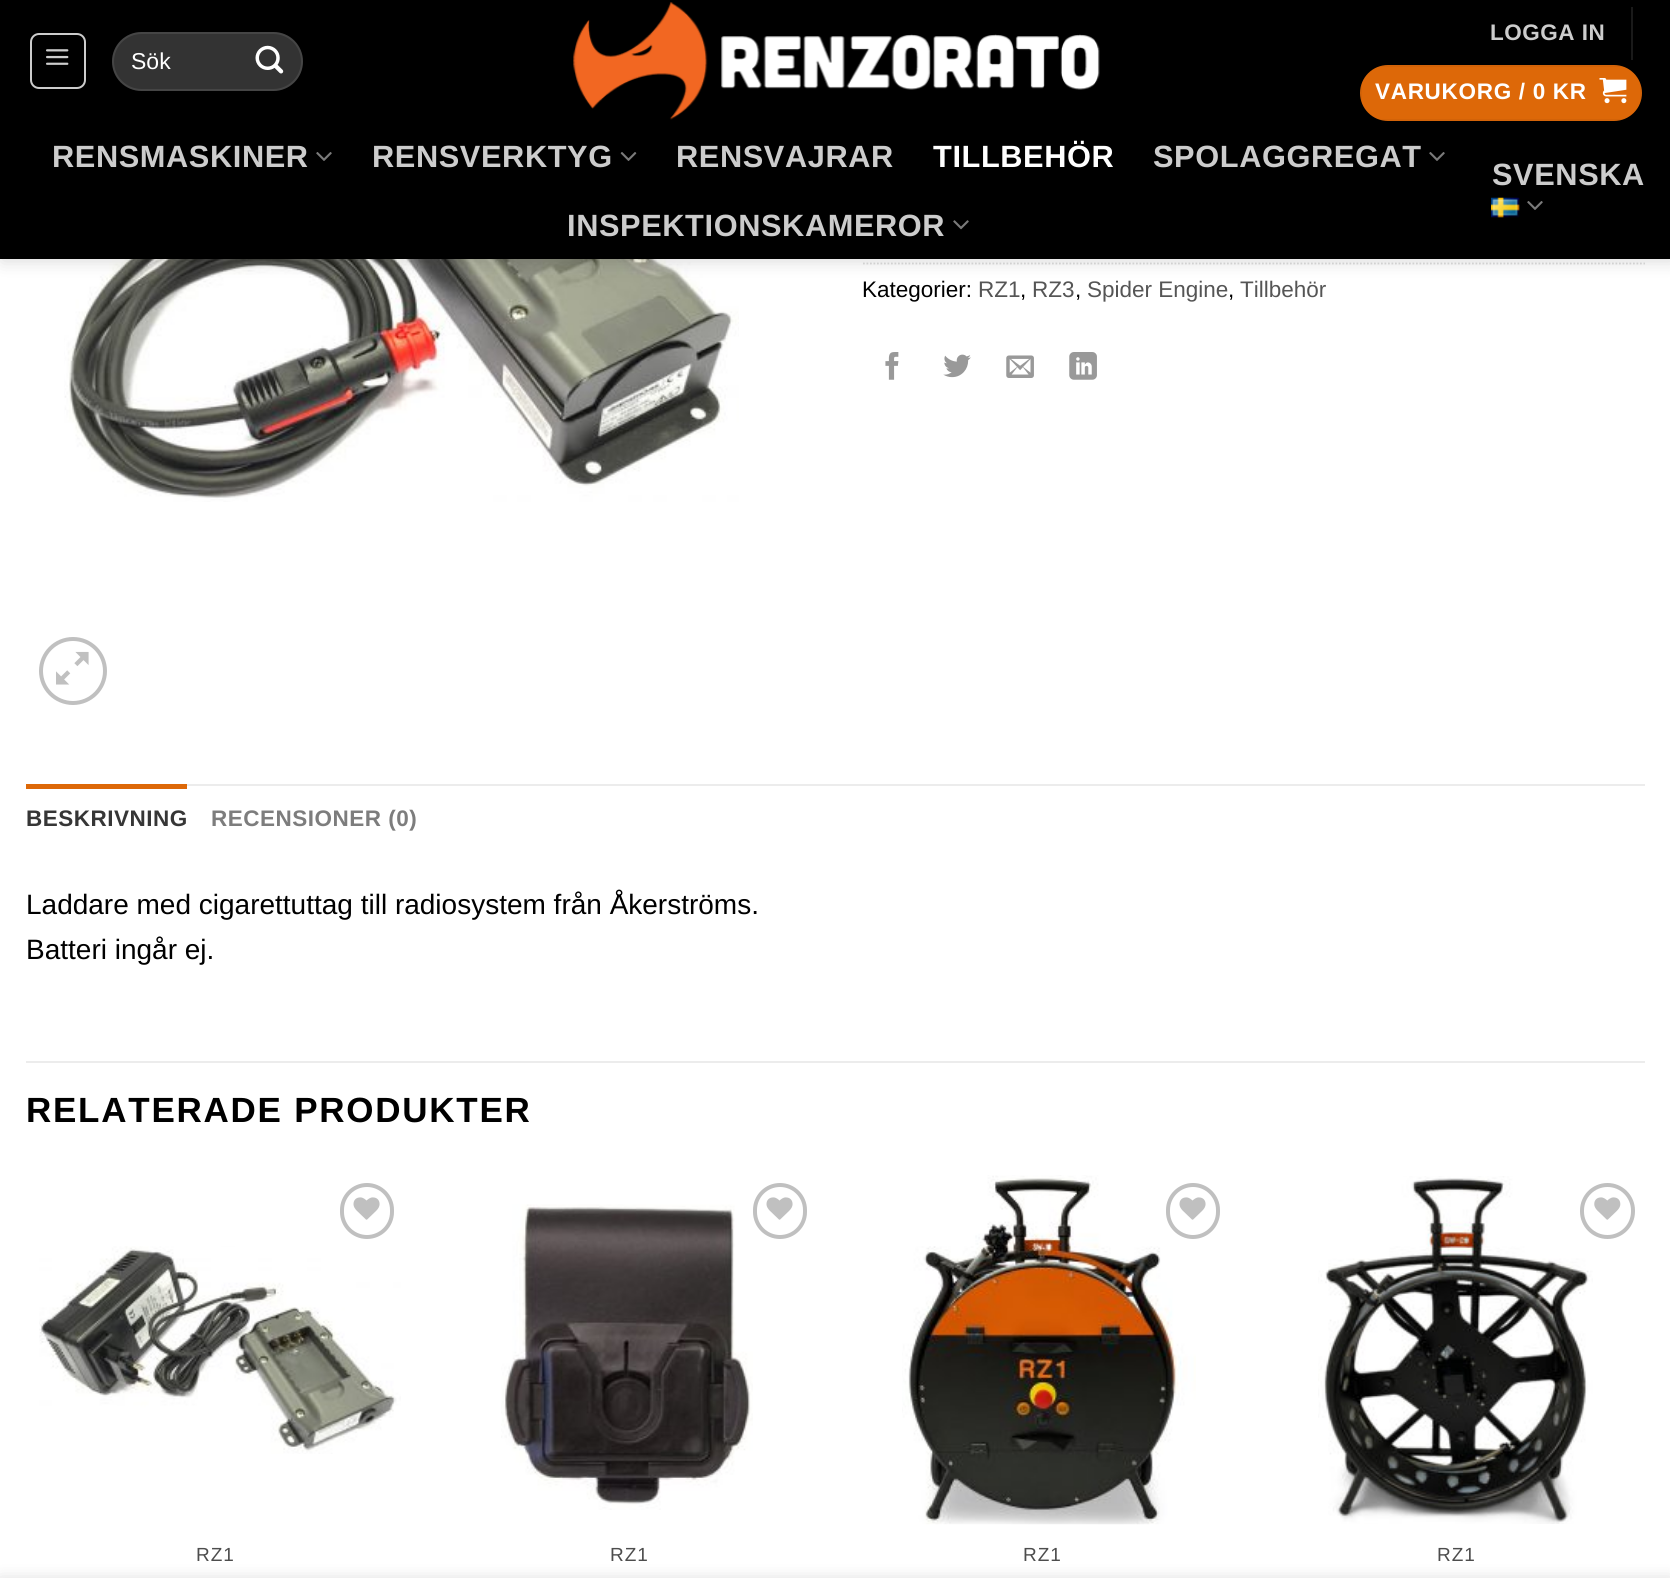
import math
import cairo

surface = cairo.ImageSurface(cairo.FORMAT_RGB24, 1670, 1578)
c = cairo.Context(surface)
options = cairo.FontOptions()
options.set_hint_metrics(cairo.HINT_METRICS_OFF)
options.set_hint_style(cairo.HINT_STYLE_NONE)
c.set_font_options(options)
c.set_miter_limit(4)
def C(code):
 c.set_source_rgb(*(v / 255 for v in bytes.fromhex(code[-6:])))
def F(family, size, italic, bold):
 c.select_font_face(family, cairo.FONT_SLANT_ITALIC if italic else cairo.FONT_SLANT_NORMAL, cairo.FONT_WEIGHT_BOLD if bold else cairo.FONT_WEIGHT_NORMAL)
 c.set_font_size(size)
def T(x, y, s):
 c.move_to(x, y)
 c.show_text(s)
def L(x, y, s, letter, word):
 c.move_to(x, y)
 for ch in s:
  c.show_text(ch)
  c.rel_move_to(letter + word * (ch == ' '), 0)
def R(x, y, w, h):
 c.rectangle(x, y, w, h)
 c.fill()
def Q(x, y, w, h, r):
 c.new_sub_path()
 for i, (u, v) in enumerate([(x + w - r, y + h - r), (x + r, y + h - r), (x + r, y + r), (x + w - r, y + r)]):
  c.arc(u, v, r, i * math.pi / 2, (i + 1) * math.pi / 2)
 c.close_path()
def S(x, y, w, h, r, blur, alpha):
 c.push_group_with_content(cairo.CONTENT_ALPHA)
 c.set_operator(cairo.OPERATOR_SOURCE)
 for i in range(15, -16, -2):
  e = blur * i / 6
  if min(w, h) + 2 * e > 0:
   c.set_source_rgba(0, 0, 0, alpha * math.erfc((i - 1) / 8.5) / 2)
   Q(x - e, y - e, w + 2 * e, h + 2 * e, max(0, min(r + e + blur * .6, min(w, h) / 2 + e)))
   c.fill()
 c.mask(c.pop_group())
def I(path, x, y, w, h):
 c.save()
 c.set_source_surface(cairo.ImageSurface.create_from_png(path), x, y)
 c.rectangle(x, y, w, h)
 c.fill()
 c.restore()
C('ffffff')
c.paint()
I('9.png',64,259,675,243)
c.new_path()
c.move_to(863,263.5)
c.line_to(1645,263.5)
C('dddddd')
c.set_line_width(1.8)
c.set_dash([1.75,1.75])
c.stroke()
C('000000')
S(2,2,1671,259,0,9,.15)
C('000000')
R(0,0,1670,259)
Q(31,34,54,54,8)
C('cccccc')
c.set_line_width(2)
c.set_dash([])
c.stroke()
I('1.png',46,49,23,16)
C('333333')
Q(112,32,191,59,29.5)
c.fill()
Q(113,33,189,57,28.5)
c.set_source_rgba(1,1,1,0.09)
c.stroke()
F('Liberation Sans',23,0,0)
C('ffffff')
T(131,69,'Sök')
I('2.png',255,45,29,29)
I('3.png',573,2,527,118)
F('Liberation Sans',22.5,0,1)
C('cccccc')
L(1490,40,'LOGGA IN',.5,0)
C('1a1a1a')
R(1631,7,2,53)
C('dd6808')
Q(1360,65,282,56,28)
c.fill()
c.rectangle(1361,66,280,54)
c.set_source_rgba(0,0,0,0.05)
c.stroke()
C('ffffff')
L(1375,99,'VARUKORG / 0 KR',.7,0)
I('4.png',1599,78,28,26)
F('Liberation Sans',30.75,0,1)
C('cccccc')
L(52,167,'RENSMASKINER',.6,0)
I('5.png',316,152,16,9)
L(372,167,'RENSVERKTYG',.6,0)
I('6.png',620,152,17,9)
L(676,167,'RENSVAJRAR',.6,0)
C('ffffff')
L(933,167,'TILLBEHÖR',.6,0)
C('cccccc')
L(1153,167,'SPOLAGGREGAT',.6,0)
I('5.png',1429,152,16,9)
L(567,236,'INSPEKTIONSKAMEROR',.6,0)
I('7.png',953,220,16,10)
L(1492,185,'SVENSKA',.6,0)
I('8.png',1491,197,29,21)
I('5.png',1527,201,16,9)
c.arc(73,671,32,0,2 * math.pi)
C('c0c0c0')
c.set_line_width(4)
c.stroke()
I('10.png',56,651,33,34)
F('Liberation Sans',22.5,0,0)
C('000000')
T(862,297,'Kategorier:')
C('555555')
T(978,297,'RZ1')
C('000000')
T(1020,297,',')
C('555555')
T(1032,297,'RZ3')
C('000000')
T(1075,297,',')
C('555555')
T(1087,297,'Spider Engine')
C('000000')
T(1228,297,',')
C('555555')
T(1240,297,'Tillbehör')
I('11.png',885,352,14,28)
I('12.png',943,354,28,24)
I('13.png',1006,355,28,23)
I('14.png',1069,352,28,28)
C('ececec')
R(187,784,1458,2)
C('dd6808')
R(26,784,161,5)
F('Liberation Sans',22.5,0,1)
C('363636')
L(26,826,'BESKRIVNING',.5,0)
C('7d7d7d')
L(211,826,'RECENSIONER (0)',.5,0)
F('Liberation Sans',28,0,0)
C('000000')
T(26,914,'Laddare med cigarettuttag till radiosystem från Åkerströms.')
T(26,959,'Batteri ingår ej.')
C('ececec')
R(26,1061,1619,2)
F('Liberation Sans',35,0,1)
C('000000')
L(26,1122,'RELATERADE PRODUKTER',1.75,0)
Q(342,1185,50,52,25)
C('c0c0c0')
c.stroke()
I('15.png',353,1197,27,23)
I('16.png',39,1246,362,208)
F('Liberation Sans',19,0,0)
C('4d4d4d')
L(196,1561,'RZ1',1,0)
I('17.png',501,1204,252,306)
Q(755,1185,50,52,25)
C('c0c0c0')
c.stroke()
I('15.png',766,1197,27,23)
C('4d4d4d')
L(610,1561,'RZ1',1,0)
I('18.png',902,1175,294,350)
Q(1168,1185,50,52,25)
C('c0c0c0')
c.stroke()
I('15.png',1179,1197,27,23)
C('4d4d4d')
L(1023,1561,'RZ1',1,0)
I('19.png',1318,1176,275,348)
Q(1582,1185,51,52,25.5)
C('c0c0c0')
c.stroke()
I('20.png',1594,1197,27,23)
C('4d4d4d')
L(1437,1561,'RZ1',1,0)
C('000000')
S(0,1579,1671,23,0,8,.14)
surface.write_to_png('o.png')
